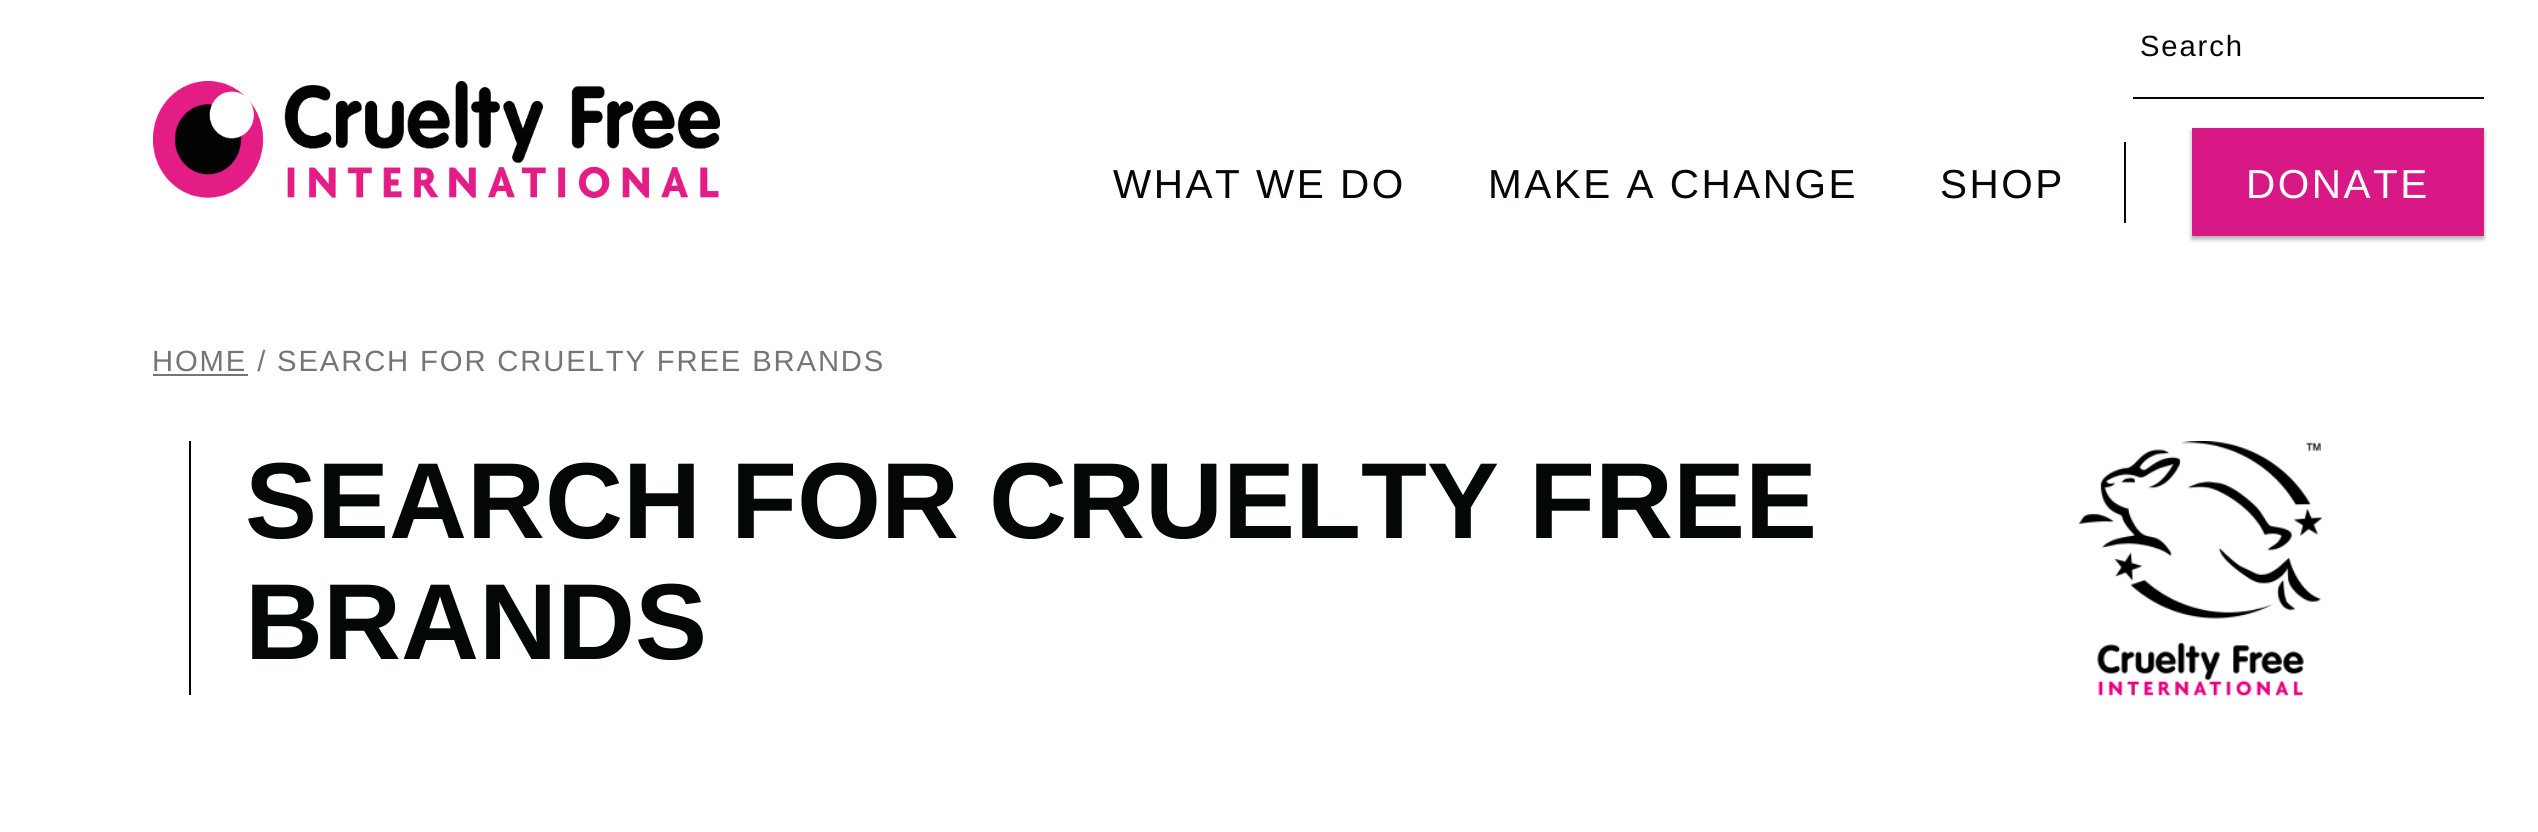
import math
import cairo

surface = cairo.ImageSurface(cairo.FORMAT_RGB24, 2538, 832)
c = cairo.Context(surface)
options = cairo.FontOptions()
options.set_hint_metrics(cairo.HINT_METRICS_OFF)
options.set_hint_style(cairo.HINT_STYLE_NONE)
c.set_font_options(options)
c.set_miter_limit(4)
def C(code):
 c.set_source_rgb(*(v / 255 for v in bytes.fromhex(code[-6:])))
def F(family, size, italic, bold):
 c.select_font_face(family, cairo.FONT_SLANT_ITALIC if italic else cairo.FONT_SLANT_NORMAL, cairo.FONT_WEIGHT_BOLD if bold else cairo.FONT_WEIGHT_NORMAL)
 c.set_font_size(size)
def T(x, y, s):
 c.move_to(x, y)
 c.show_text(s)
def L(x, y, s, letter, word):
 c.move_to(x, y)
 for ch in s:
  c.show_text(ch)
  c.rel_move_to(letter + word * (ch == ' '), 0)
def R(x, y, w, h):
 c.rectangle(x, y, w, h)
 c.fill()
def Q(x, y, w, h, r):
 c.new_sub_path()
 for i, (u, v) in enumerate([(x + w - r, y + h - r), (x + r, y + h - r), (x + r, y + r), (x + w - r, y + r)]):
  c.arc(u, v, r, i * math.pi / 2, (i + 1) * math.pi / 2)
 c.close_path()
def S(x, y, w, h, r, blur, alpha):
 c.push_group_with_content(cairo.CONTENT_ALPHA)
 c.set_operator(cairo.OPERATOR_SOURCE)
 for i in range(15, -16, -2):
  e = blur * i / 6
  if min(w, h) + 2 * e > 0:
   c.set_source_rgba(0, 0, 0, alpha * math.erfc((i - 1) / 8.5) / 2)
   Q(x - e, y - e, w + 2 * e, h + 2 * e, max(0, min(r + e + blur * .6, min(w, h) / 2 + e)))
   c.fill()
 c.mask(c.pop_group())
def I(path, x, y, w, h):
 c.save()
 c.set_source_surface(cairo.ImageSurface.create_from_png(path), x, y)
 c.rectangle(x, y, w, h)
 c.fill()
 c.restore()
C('ffffff')
c.paint()
I('1.png',153,81,567,117)
C('040707')
R(2133,97,351,2)
F('Liberation Sans',29.25,0,0)
L(2140,56,'Search',1.85,0)
F('Liberation Sans',40.5,0,0)
L(1113,198,'WHAT WE DO',2.5,0)
L(1488,198,'MAKE A CHANGE',2.5,0)
L(1940,198,'SHOP',2.5,0)
R(2124,142,2,81)
C('000000')
S(2192,131,292,108,0,2,.24)
S(2192,131,292,108,0,3.5,.12)
C('d81885')
R(2192,128,292,108)
C('ffffff')
L(2246,198,'DONATE',2.5,0)
F('Liberation Sans',29.25,0,0)
C('757575')
L(152,371,'HOME / SEARCH FOR CRUELTY FREE BRANDS',1.85,0)
R(153,374,95,2)
C('040707')
R(189,441,2,254)
F('Liberation Sans',108,0,1)
T(245,538,'SEARCH FOR CRUELTY FREE')
I('2.png',2079,441,243,255)
T(245,659,'BRANDS')
surface.write_to_png('o.png')
